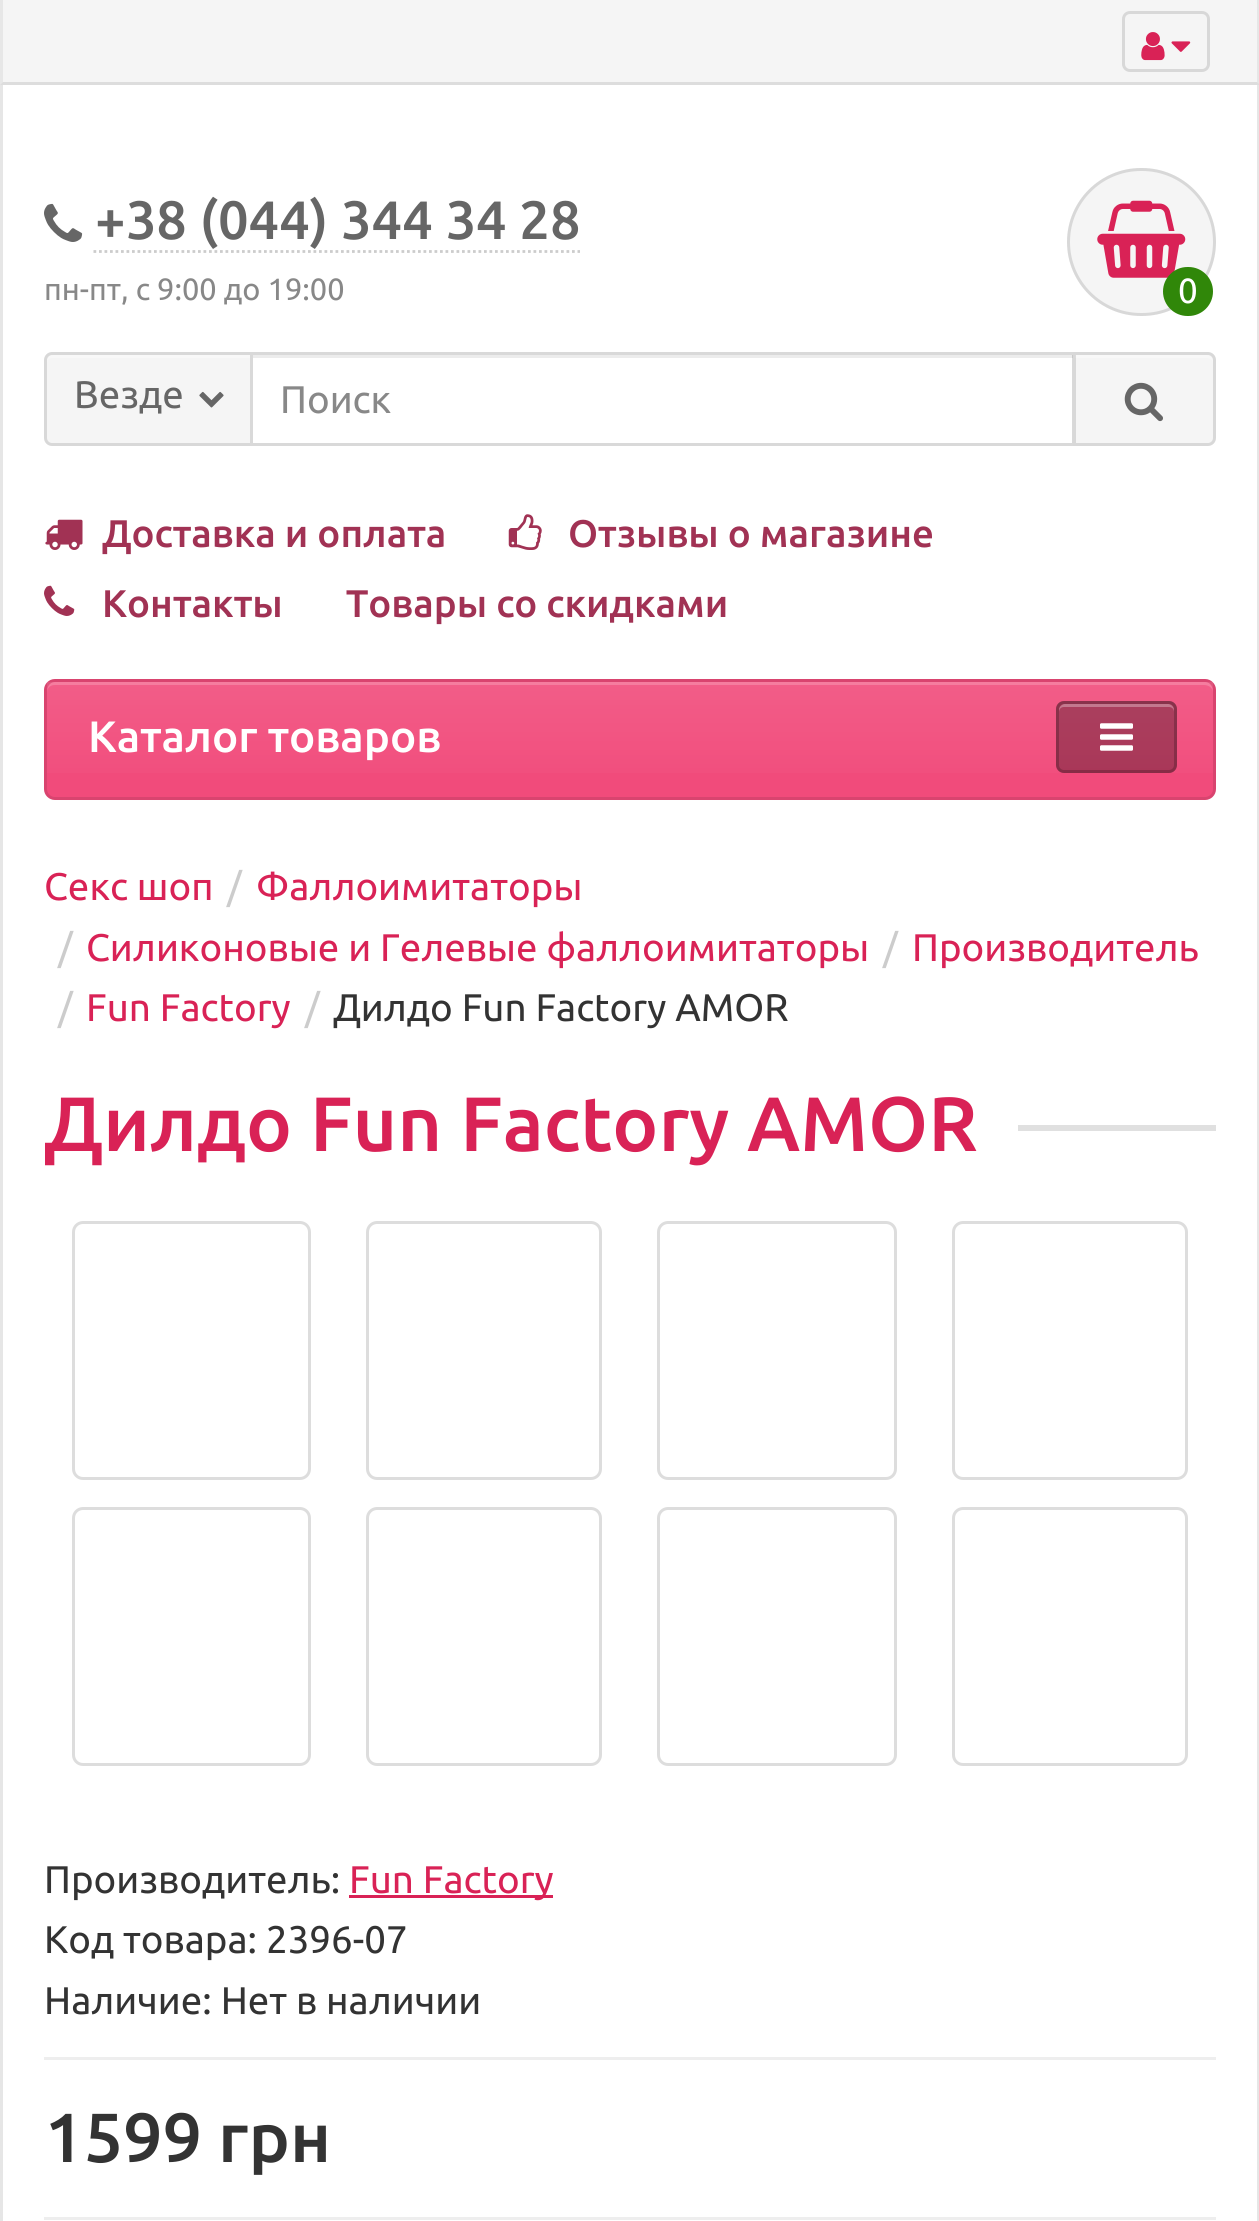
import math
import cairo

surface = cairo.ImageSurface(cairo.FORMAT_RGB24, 1259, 2221)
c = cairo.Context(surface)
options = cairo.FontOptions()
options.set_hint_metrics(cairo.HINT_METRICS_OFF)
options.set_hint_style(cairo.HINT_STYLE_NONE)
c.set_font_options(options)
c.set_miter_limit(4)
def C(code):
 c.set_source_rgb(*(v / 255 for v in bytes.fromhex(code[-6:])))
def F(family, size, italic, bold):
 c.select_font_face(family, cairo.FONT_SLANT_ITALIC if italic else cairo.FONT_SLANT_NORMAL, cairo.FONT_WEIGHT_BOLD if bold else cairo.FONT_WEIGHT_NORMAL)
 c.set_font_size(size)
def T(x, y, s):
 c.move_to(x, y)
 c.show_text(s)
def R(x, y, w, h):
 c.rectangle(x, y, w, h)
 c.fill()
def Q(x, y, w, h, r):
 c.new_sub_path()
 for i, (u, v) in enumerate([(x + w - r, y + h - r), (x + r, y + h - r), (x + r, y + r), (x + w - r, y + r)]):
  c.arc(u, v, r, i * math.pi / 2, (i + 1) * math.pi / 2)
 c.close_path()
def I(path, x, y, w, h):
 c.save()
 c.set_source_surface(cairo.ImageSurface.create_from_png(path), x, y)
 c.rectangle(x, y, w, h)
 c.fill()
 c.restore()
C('ffffff')
c.paint()
C('f5f5f5')
R(0,0,1259,85)
C('e6e6e6')
c.new_path()
c.move_to(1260,-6)
c.line_to(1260,85)
c.line_to(1257,82)
c.line_to(1257,-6)
c.close_path()
c.fill()
c.set_source_rgba(0,0,0,0.1)
c.new_path()
c.move_to(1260,85)
c.line_to(0,85)
c.line_to(3,82)
c.line_to(1257,82)
c.close_path()
c.fill()
c.set_source_rgba(0,0,0,0.06)
c.new_path()
c.move_to(0,85)
c.line_to(0,-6)
c.line_to(3,-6)
c.line_to(3,82)
c.close_path()
c.fill()
Q(1123.5,12.5,85,58,6.5)
C('d8d8d8')
c.set_line_width(3)
c.stroke()
I('1.png',1141,32,24,29)
I('2.png',1171,41,20,11)
C('e6e6e6')
R(1257,85,2,770)
R(0,85,3,770)
I('3.png',44,203,39,39)
F('Ubuntu Medium',54,0,0)
C('666666')
T(95,239,'+38 (044) 344 34 28')
c.new_path()
c.move_to(93.5,251.5)
c.line_to(580,251.5)
C('cccccc')
c.set_line_width(2.8)
c.set_dash([2.75,2.75])
c.stroke()
F('Ubuntu',30.75,0,0)
C('888888')
T(44,300,'пн-пт, с 9:00 до 19:00')
C('f5f5f5')
Q(1067,168,149,148,74)
c.fill()
Q(1068.5,169.5,146,145,72.5)
c.set_source_rgba(0,0,0,0.12)
c.set_line_width(3)
c.set_dash([])
c.stroke()
I('4.png',1097,200,89,78)
C('308709')
Q(1163,267,50,49,24.5)
c.fill()
F('Ubuntu',35,0,0)
C('ffffff')
T(1178,303,'0')
C('f5f5f5')
c.new_path()
c.move_to(52,352)
c.line_to(256,352)
c.line_to(256,446)
c.line_to(52,446)
c.curve_to(47.5,446,44,442.5,44,438)
c.line_to(44,360)
c.curve_to(44,355.5,47.5,352,52,352)
c.close_path()
c.fill()
C('f8f8f8')
c.new_path()
c.move_to(52,358)
c.line_to(253,358)
c.line_to(253,355)
c.line_to(53,355)
c.curve_to(50,355,47,358,47,361)
c.line_to(47,363)
c.curve_to(47,360,49,358,52,358)
c.close_path()
c.fill()
c.new_path()
c.move_to(52,353.5)
c.line_to(254.5,353.5)
c.line_to(254.5,444.5)
c.line_to(52,444.5)
c.curve_to(48.5,444.5,45.5,441.5,45.5,438)
c.line_to(45.5,360)
c.curve_to(45.5,356.5,48.5,353.5,52,353.5)
c.close_path()
c.set_source_rgba(0,0,0,0.12)
c.stroke()
F('Ubuntu',38.5,0,0)
C('666666')
T(74,408,'Везде')
I('5.png',199,391,25,17)
C('ffffff')
R(250,352,6,94)
C('ececec')
R(253,355,820,3)
c.rectangle(251.5,353.5,822,91)
c.set_source_rgba(0,0,0,0.15)
c.stroke()
C('888888')
T(280,413,'Поиск')
C('f5f5f5')
c.new_path()
c.move_to(1073,352)
c.line_to(1208,352)
c.curve_to(1212.5,352,1216,355.5,1216,360)
c.line_to(1216,438)
c.curve_to(1216,442.5,1212.5,446,1208,446)
c.line_to(1073,446)
c.close_path()
c.fill()
C('f8f8f8')
c.new_path()
c.move_to(1075,358)
c.line_to(1207,358)
c.curve_to(1210,358,1213,360,1213,363)
c.line_to(1213,361)
c.curve_to(1213,358,1210,355,1207,355)
c.line_to(1075,355)
c.close_path()
c.fill()
c.new_path()
c.move_to(1074.5,353.5)
c.line_to(1208,353.5)
c.curve_to(1211.5,353.5,1214.5,356.5,1214.5,360)
c.line_to(1214.5,438)
c.curve_to(1214.5,441.5,1211.5,444.5,1208,444.5)
c.line_to(1074.5,444.5)
c.close_path()
c.set_source_rgba(0,0,0,0.12)
c.stroke()
I('6.png',1124,382,39,40)
I('7.png',45,519,38,31)
F('Ubuntu Medium',38.5,0,0)
C('a13254')
T(102,547,'Доставка и оплата')
I('8.png',508,514,34,36)
T(568,547,'Отзывы о магазине')
I('9.png',44,585,31,31)
T(102,617,'Контакты')
T(346,617,'Товары со скидками')
C('f14b7b')
Q(44,679,1172,121,11)
c.fill()
C('f46f95')
c.new_path()
c.move_to(55,685)
c.line_to(1204,685)
c.curve_to(1209,685,1213,688,1213,693)
c.curve_to(1213,688,1211,682,1205,682)
c.line_to(55,682)
c.curve_to(49,682,47,688,47,693)
c.curve_to(47,688,50,685,55,685)
c.close_path()
c.fill()
Q(45.5,680.5,1169,118,9.5)
c.set_source_rgba(0,0,0,0.1)
c.stroke()
gradient = cairo.LinearGradient(630,682,630,798)
gradient.add_color_stop_rgba(0,1,1,1,.1)
gradient.add_color_stop_rgba(1,1,1,1,0)
c.set_source(gradient)
R(47,682,1166,91)
F('Ubuntu Medium',44,0,0)
C('ffffff')
T(88,752,'Каталог товаров')
c.set_source_rgba(0,0,0,0.3)
Q(1056,701,121,72,8)
c.fill()
C('c3788e')
c.new_path()
c.move_to(1064,707)
c.line_to(1169,707)
c.curve_to(1172,707,1174,709,1174,712)
c.line_to(1174,710)
c.curve_to(1174,707,1171,704,1168,704)
c.line_to(1065,704)
c.curve_to(1062,704,1059,707,1059,710)
c.line_to(1059,712)
c.curve_to(1059,709,1061,707,1064,707)
c.close_path()
c.fill()
Q(1057.5,702.5,118,69,6.5)
c.set_source_rgba(0,0,0,0.2)
c.stroke()
I('10.png',1100,723,33,28)
C('e6e6e6')
R(1257,855,2,1366)
R(0,855,3,1366)
F('Ubuntu',38.5,0,0)
C('d92256')
T(44,900,'Секс шоп')
C('cccccc')
T(227,900,'/')
C('d92256')
T(256,900,'Фаллоимитаторы')
C('cccccc')
T(58,961,'/')
C('d92256')
T(86,961,'Силиконовые и Гелевые фаллоимитаторы')
C('cccccc')
T(883,961,'/')
C('d92256')
T(912,961,'Производитель')
C('cccccc')
T(58,1021,'/')
C('d92256')
T(86,1021,'Fun Factory')
C('cccccc')
T(305,1021,'/')
C('333333')
T(333,1021,'Дилдо Fun Factory AMOR')
F('Ubuntu Medium',77,0,0)
C('d92256')
T(44,1151,'Дилдо Fun Factory AMOR')
C('e0e0e0')
R(1018,1125,198,6)
Q(73.5,1222.5,236,256,9.5)
C('dddddd')
c.stroke()
Q(367.5,1222.5,233,256,9.5)
c.stroke()
Q(658.5,1222.5,237,256,9.5)
c.stroke()
Q(953.5,1222.5,233,256,9.5)
c.stroke()
Q(73.5,1508.5,236,256,9.5)
c.stroke()
Q(367.5,1508.5,233,256,9.5)
c.stroke()
Q(658.5,1508.5,237,256,9.5)
c.stroke()
Q(953.5,1508.5,233,256,9.5)
c.stroke()
F('Ubuntu',38.5,0,0)
C('333333')
T(44,1893,'Производитель:')
C('d92256')
R(349,1895,204,3)
T(349,1893,'Fun Factory')
C('333333')
T(44,1953,'Код товара: 2396-07')
T(44,2014,'Наличие: Нет в наличии')
C('eeeeee')
R(44,2057,1172,3)
F('Ubuntu Medium',69.5,0,0)
C('333333')
T(44,2162,'1599 грн')
C('eeeeee')
R(44,2217,1172,3)
surface.write_to_png('o.png')
